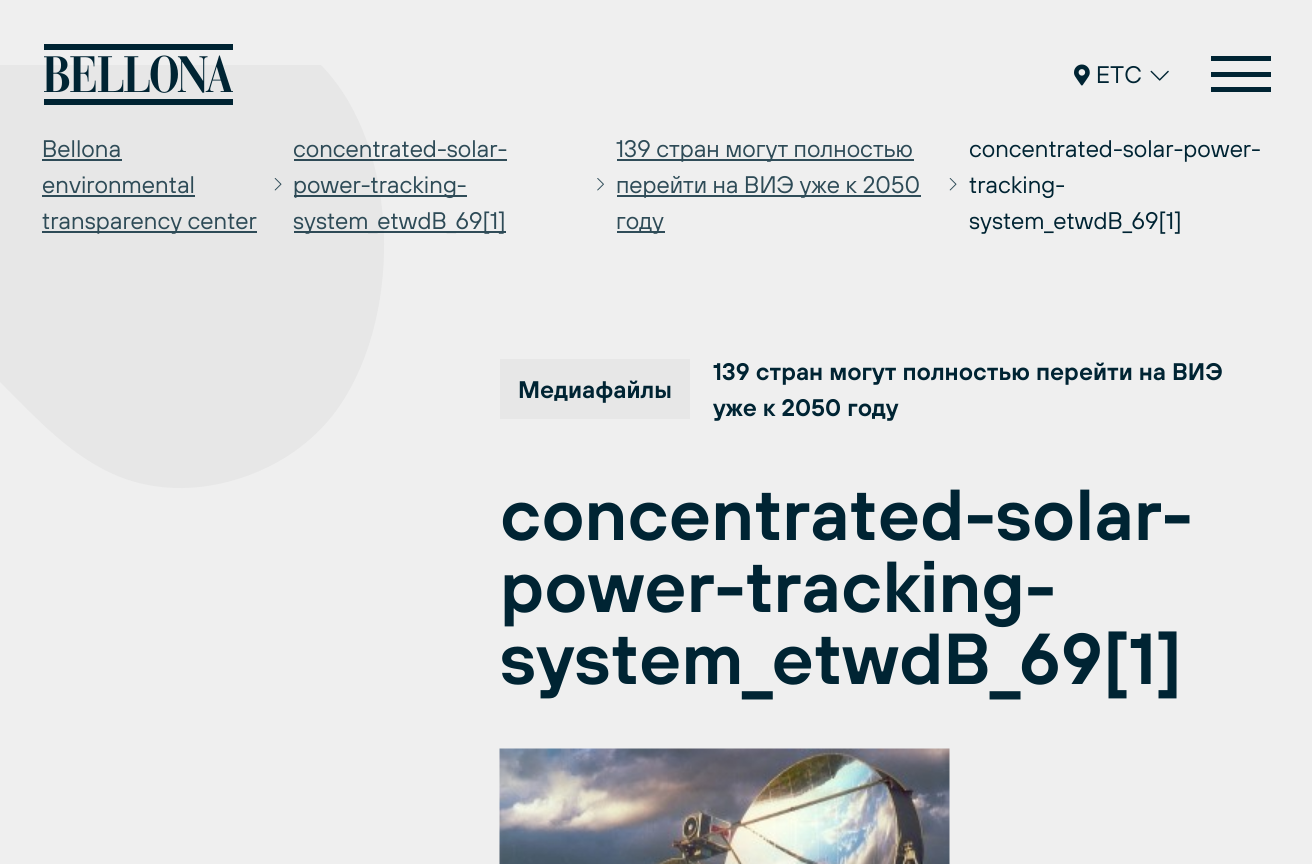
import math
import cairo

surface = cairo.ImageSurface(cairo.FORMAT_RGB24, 1312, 864)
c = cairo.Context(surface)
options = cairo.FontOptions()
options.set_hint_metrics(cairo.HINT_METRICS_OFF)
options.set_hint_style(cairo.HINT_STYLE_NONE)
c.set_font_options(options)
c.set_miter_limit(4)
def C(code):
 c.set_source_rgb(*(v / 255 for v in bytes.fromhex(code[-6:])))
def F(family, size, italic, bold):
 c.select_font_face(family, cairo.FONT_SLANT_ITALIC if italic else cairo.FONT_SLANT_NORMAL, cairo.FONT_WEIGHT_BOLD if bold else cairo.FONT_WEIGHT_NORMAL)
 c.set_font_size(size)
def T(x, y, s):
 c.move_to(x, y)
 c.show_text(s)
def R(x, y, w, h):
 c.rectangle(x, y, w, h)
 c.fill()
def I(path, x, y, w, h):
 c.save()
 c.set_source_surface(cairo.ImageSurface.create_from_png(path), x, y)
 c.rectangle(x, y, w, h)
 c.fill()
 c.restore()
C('efefef')
c.paint()
C('e7e7e7')
c.set_fill_rule(cairo.FILL_RULE_EVEN_ODD)
c.new_path()
c.move_to(321,65)
c.curve_to(403,149,403,325,333,415)
c.curve_to(307,448,271,470,231,481)
c.curve_to(195,491,156,491,120,477)
c.curve_to(72,458,36,418,0,382)
c.line_to(0,65)
c.close_path()
c.fill()
I('1.png',44,44,189,61)
I('2.png',1074,64,16,22)
F('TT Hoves',24,0,0)
C('002433')
T(1096,83,'ETC')
I('3.png',1150,70,19,11)
R(1211,56,60,5)
R(1211,72,60,5)
R(1211,87,60,5)
C('2e4b57')
T(42,157,'Bellona')
R(42,159,80,2)
T(42,193,'environmental')
R(42,195,153,2)
R(42,231,215,2)
T(42,229,'transparency center')
I('4.png',274,178,8,13)
T(293,157,'concentrated-solar-')
c.set_source_rgba(0,0.141,0.2,0.8)
R(294,159,213,2)
R(294,195,173,2)
C('2e4b57')
T(293,193,'power-tracking-')
c.set_source_rgba(0,0.141,0.2,0.8)
R(294,231,212,2)
C('2e4b57')
T(293,229,'system_etwdB_69[1]')
I('5.png',597,178,7,13)
C('304d59')
R(617,159,297,2)
C('2e4b57')
T(616,157,'139 стран могут полностью')
C('304d59')
R(617,195,304,2)
C('2e4b57')
T(616,193,'перейти на ВИЭ уже к 2050')
C('304d59')
R(617,231,48,2)
C('2e4b57')
T(616,229,'году')
I('6.png',949,178,8,13)
C('002433')
T(969,157,'concentrated-solar-power-')
T(969,193,'tracking-')
T(969,229,'system_etwdB_69[1]')
C('e7e7e7')
R(500,359,190,60)
F('TT Hoves SemiBold',24,0,0)
C('002433')
T(518,398,'Медиафайлы')
T(713,380,'139 стран могут полностью перейти на ВИЭ')
T(713,416,'уже к 2050 году')
F('TT Hoves SemiBold',72,0,0)
T(500,540,'concentrated-solar-')
T(500,612,'power-tracking-')
T(500,684,'system_etwdB_69[1]')
I('7.png',499,748,451,116)
surface.write_to_png('o.png')
